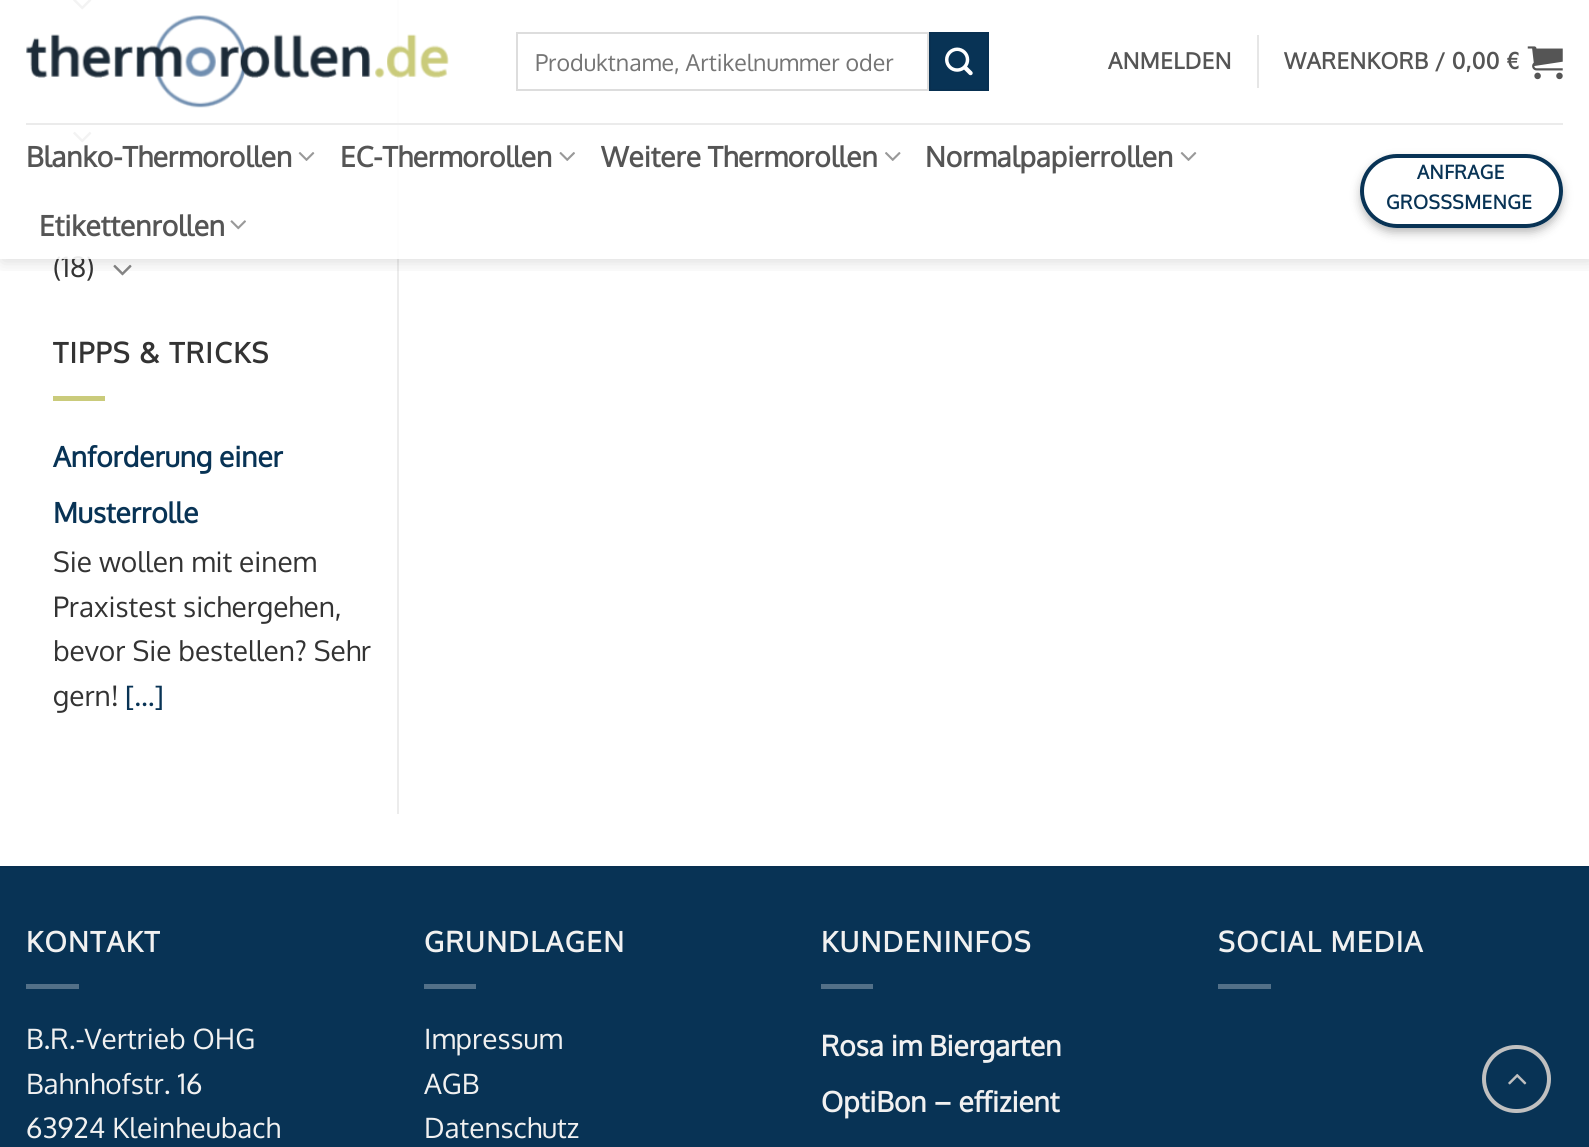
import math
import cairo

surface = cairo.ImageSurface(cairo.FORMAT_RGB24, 1589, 1147)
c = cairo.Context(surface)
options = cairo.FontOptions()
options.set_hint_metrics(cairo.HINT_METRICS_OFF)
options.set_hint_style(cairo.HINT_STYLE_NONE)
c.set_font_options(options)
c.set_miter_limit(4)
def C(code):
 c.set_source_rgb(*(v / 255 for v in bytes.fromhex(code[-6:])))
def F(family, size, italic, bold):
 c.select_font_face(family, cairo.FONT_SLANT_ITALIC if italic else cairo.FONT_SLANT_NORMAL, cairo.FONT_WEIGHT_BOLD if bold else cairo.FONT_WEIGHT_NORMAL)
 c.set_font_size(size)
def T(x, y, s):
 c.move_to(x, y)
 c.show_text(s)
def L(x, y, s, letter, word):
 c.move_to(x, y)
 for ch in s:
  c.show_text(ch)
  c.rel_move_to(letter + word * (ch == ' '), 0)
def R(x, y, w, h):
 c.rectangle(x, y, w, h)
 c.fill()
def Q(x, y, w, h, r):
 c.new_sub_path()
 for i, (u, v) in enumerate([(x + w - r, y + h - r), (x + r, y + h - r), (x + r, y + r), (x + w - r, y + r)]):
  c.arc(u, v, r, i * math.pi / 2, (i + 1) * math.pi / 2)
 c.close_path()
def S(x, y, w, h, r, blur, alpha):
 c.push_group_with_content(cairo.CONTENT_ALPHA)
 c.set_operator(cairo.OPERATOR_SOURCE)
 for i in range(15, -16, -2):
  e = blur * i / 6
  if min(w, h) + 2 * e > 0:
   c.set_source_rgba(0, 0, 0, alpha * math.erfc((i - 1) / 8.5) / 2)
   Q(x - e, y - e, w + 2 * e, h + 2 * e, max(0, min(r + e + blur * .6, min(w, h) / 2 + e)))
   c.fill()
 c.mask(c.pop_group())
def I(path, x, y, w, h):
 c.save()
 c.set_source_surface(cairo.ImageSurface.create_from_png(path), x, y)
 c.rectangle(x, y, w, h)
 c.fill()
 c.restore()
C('ffffff')
c.paint()
I('8.png',73,0,19,10)
I('9.png',73,131,19,12)
I('10.png',113,264,19,12)
C('ececec')
R(397,0,2,814)
c.save()
c.rectangle(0,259,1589,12)
c.clip()
C('000000')
S(2,2,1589,259,0,9,.15)
c.restore()
F('Oxygen',28,0,0)
C('333333')
T(53,277,'(18)')
c.set_source_rgba(1,1,1,0.9)
R(56,0,343,259)
I('1.png',26,15,423,93)
c.rectangle(517,33,411,57)
C('dddddd')
c.stroke()
F('Oxygen',23.1,0,0)
C('757575')
T(535,71,'Produktname, Artikelnummer oder')
C('083355')
c.rectangle(930,33,58,57)
c.fill_preserve()
C('083051')
c.stroke()
I('2.png',945,47,28,29)
F('Oxygen',22.4,0,1)
C('555555')
L(1108,69,'ANMELDEN',.5,0)
C('e6e6e6')
R(1257,35,2,53)
C('555555')
L(1284,69,'WARENKORB / 0,00 €',.5,0)
I('3.png',1527,46,36,34)
C('ebebeb')
R(26,123,1537,2)
F('Oxygen',28,0,1)
C('555555')
T(26,167,'Blanko-Thermorollen')
I('4.png',298,152,17,9)
T(340,167,'EC-Thermorollen')
I('5.png',559,152,16,9)
T(601,167,'Weitere Thermorollen')
I('6.png',885,152,16,9)
T(925,167,'Normalpapierrollen')
I('4.png',1180,152,17,9)
T(39,236,'Etikettenrollen')
I('7.png',230,220,16,10)
c.save()
c.set_fill_rule(cairo.FILL_RULE_EVEN_ODD)
c.new_path()
c.move_to(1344,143)
c.line_to(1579,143)
c.line_to(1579,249)
c.line_to(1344,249)
c.close_path()
c.move_to(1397,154)
c.line_to(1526,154)
c.curve_to(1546.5,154,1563,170.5,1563,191)
c.curve_to(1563,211.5,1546.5,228,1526,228)
c.line_to(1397,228)
c.curve_to(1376.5,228,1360,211.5,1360,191)
c.curve_to(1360,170.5,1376.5,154,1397,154)
c.close_path()
c.clip()
C('000000')
S(1360,159,203,74,37,5,.23)
c.restore()
c.save()
c.set_fill_rule(cairo.FILL_RULE_EVEN_ODD)
c.new_path()
c.move_to(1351,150)
c.line_to(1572,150)
c.line_to(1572,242)
c.line_to(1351,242)
c.close_path()
c.move_to(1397,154)
c.line_to(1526,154)
c.curve_to(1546.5,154,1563,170.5,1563,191)
c.curve_to(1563,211.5,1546.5,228,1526,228)
c.line_to(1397,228)
c.curve_to(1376.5,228,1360,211.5,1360,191)
c.curve_to(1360,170.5,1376.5,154,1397,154)
c.close_path()
c.clip()
C('000000')
S(1367,166,189,60,30,5,.16)
c.restore()
Q(1362,156,199,70,35)
C('083355')
c.set_line_width(4)
c.stroke()
F('Oxygen',19,0,1)
L(1417,179,'ANFRAGE',.5,0)
L(1386,209,'GROSSSMENGE',.5,0)
F('Oxygen',28,0,1)
C('333333')
L(53,363,'TIPPS & TRICKS',1.4,0)
C('cacb7b')
R(53,396,52,5)
C('083355')
T(53,467,'Anforderung einer')
T(53,523,'Musterrolle')
F('Oxygen',28,0,0)
C('333333')
T(53,572,'Sie wollen mit einem')
T(53,617,'Praxistest sichergehen,')
T(53,661,'bevor Sie bestellen? Sehr')
T(53,706,'gern!')
C('083355')
T(125,706,'[...]')
R(0,868,1589,279)
C('083051')
R(0,866,1589,2)
F('Oxygen',28,0,1)
C('f1f1f1')
L(26,952,'KONTAKT',1.4,0)
C('527088')
R(26,984,53,5)
F('Oxygen',28,0,0)
C('f1f1f1')
T(26,1049,'B.R.-Vertrieb OHG')
T(26,1094,'Bahnhofstr. 16')
T(26,1138,'63924 Kleinheubach')
F('Oxygen',28,0,1)
L(424,952,'GRUNDLAGEN',1.4,0)
C('527088')
R(424,984,52,5)
F('Oxygen',28,0,0)
C('f1f1f1')
T(424,1049,'Impressum')
T(424,1094,'AGB')
T(424,1138,'Datenschutz')
F('Oxygen',28,0,1)
L(821,952,'KUNDENINFOS',1.4,0)
C('527088')
R(821,984,52,5)
C('f1f1f1')
T(821,1056,'Rosa im Biergarten')
T(821,1112,'OptiBon – effizient')
L(1218,952,'SOCIAL MEDIA',1.4,0)
C('527088')
R(1218,984,53,5)
Q(1484,1047,65,64,32)
C('c0c0c0')
c.stroke()
I('11.png',1508,1073,19,12)
surface.write_to_png('o.png')
